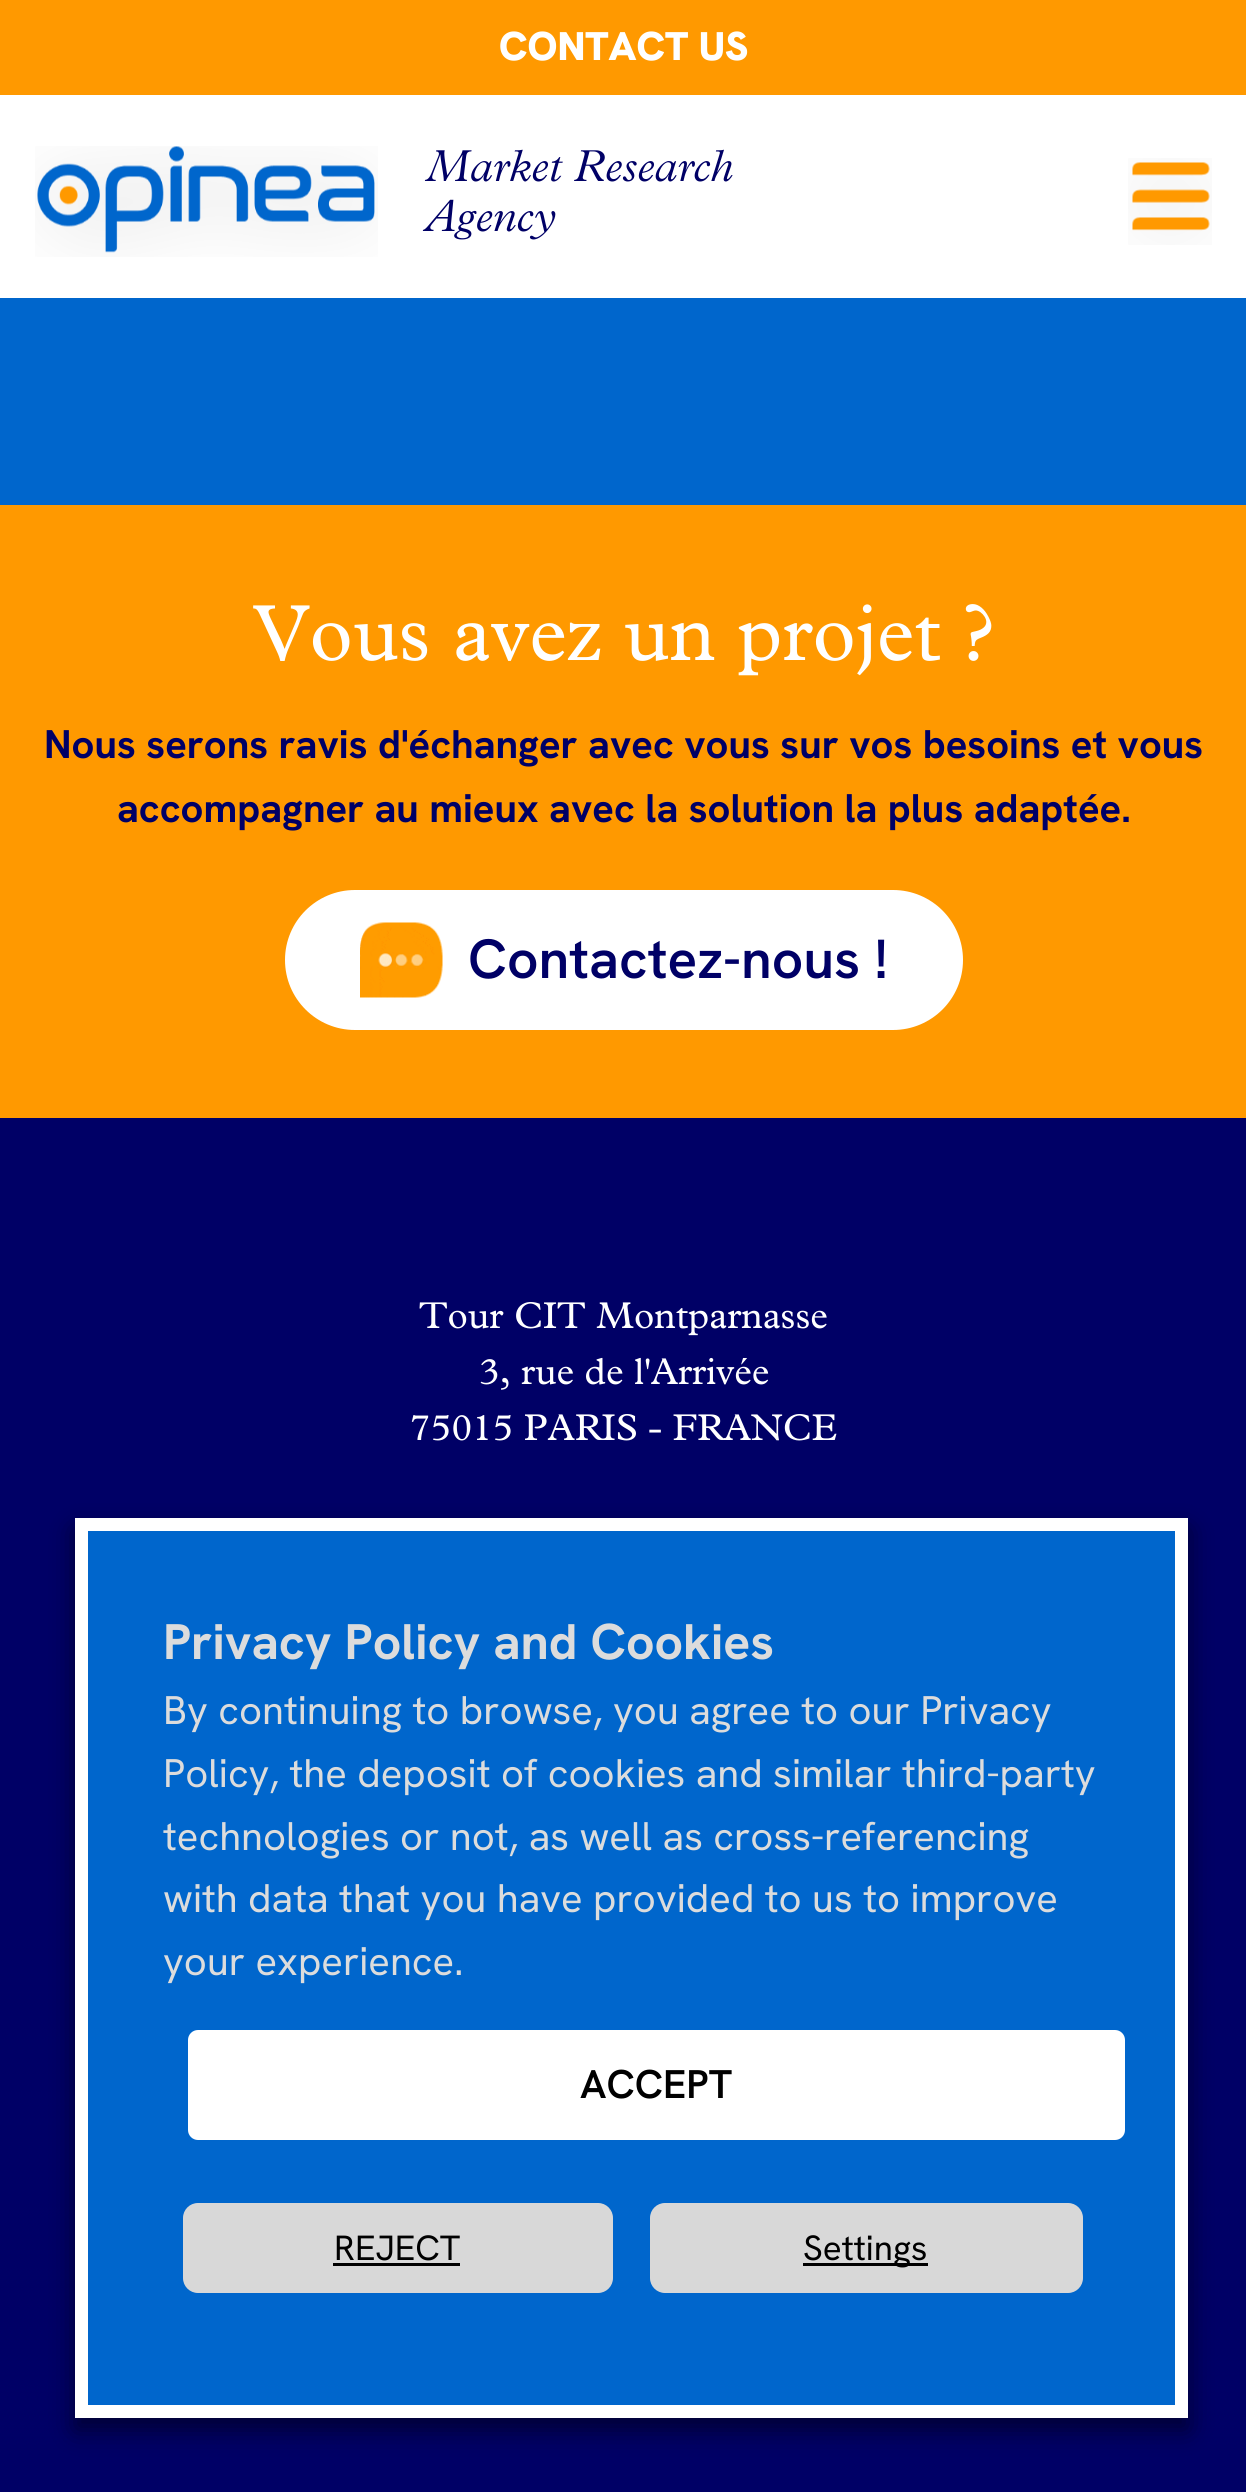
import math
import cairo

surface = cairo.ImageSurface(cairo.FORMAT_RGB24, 1246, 2492)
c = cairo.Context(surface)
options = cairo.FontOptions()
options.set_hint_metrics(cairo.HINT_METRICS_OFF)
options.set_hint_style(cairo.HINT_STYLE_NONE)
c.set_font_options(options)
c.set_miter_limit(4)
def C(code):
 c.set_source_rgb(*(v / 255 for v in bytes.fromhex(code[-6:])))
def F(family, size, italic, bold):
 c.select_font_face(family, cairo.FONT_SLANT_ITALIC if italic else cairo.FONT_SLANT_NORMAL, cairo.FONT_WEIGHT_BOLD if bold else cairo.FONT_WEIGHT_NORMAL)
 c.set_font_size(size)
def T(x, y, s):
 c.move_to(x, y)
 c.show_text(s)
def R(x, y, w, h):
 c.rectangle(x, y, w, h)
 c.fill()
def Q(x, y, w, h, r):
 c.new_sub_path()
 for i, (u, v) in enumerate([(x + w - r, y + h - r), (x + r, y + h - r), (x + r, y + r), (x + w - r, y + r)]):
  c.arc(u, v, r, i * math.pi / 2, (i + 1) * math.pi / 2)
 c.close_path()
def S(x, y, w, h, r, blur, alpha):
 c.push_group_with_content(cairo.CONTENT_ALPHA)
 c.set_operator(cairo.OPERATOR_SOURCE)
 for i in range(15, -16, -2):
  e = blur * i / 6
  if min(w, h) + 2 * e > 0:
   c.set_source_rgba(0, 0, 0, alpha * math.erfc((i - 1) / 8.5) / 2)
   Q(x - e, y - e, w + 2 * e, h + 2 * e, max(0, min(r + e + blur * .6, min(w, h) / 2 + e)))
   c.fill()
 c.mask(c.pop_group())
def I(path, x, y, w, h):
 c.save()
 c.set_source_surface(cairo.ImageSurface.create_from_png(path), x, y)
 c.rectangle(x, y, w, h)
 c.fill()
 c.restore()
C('000066')
c.paint()
C('ffffff')
R(0,95,1246,203)
C('ff9900')
R(0,0,1246,95)
F('Hanken Grotesk Black',40,0,0)
C('ffffff')
T(499,60,'CONTACT US')
I('1.png',35,146,343,111)
F('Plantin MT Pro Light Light',45,1,0)
C('000066')
T(425,181,'Market Research')
T(425,231,'Agency')
I('2.png',1128,158,84,87)
C('0066cc')
R(0,298,1246,207)
C('ff9900')
R(0,505,1246,613)
F('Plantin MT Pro',80,0,0)
C('ffffff')
T(253,660,'Vous avez un projet ?')
F('Hanken Grotesk',40,0,1)
C('000066')
T(44,758,'Nous serons ravis d\'échanger avec vous sur vos besoins et vous')
T(117,822,'accompagner au mieux avec la solution la plus adaptée.')
C('ffffff')
Q(285,890,678,140,70)
c.fill()
I('3.png',360,922,83,76)
F('Hanken Grotesk SemiBold',55,0,0)
C('000066')
T(468,978,'Contactez-nous !')
F('Plantin MT Pro',37.5,0,0)
C('ffffff')
T(419,1328,'Tour CIT Montparnasse')
T(479,1384,'3, rue de l\'Arrivée')
T(410,1440,'75015 PARIS - FRANCE')
C('000000')
S(75,1530,1113,900,0,12.5,.5)
C('0066cc')
c.rectangle(81.5,1524.5,1100,887)
c.fill_preserve()
C('ffffff')
c.set_line_width(13)
c.stroke()
F('Hanken Grotesk',50,0,1)
C('dcdcdc')
T(163,1659,'Privacy Policy and Cookies')
F('Hanken Grotesk',40,0,0)
T(163,1724,'By continuing to browse, you agree to our Privacy')
T(163,1787,'Policy, the deposit of cookies and similar third-party')
T(163,1850,'technologies or not, as well as cross-referencing')
T(163,1912,'with data that you have provided to us to improve')
T(163,1975,'your experience.')
C('ffffff')
Q(188,2030,937,110,10)
c.fill()
F('Hanken Grotesk SemiBold',40,0,0)
C('000000')
T(580,2098,'ACCEPT')
C('d8d8d8')
Q(183,2203,430,90,15)
c.fill()
F('Hanken Grotesk',35,0,0)
C('000000')
T(334,2260,'REJECT')
R(333,2263,127,3)
C('d8d8d8')
Q(650,2203,433,90,15)
c.fill()
C('000000')
R(803,2263,125,3)
T(803,2260,'Settings')
surface.write_to_png('o.png')
